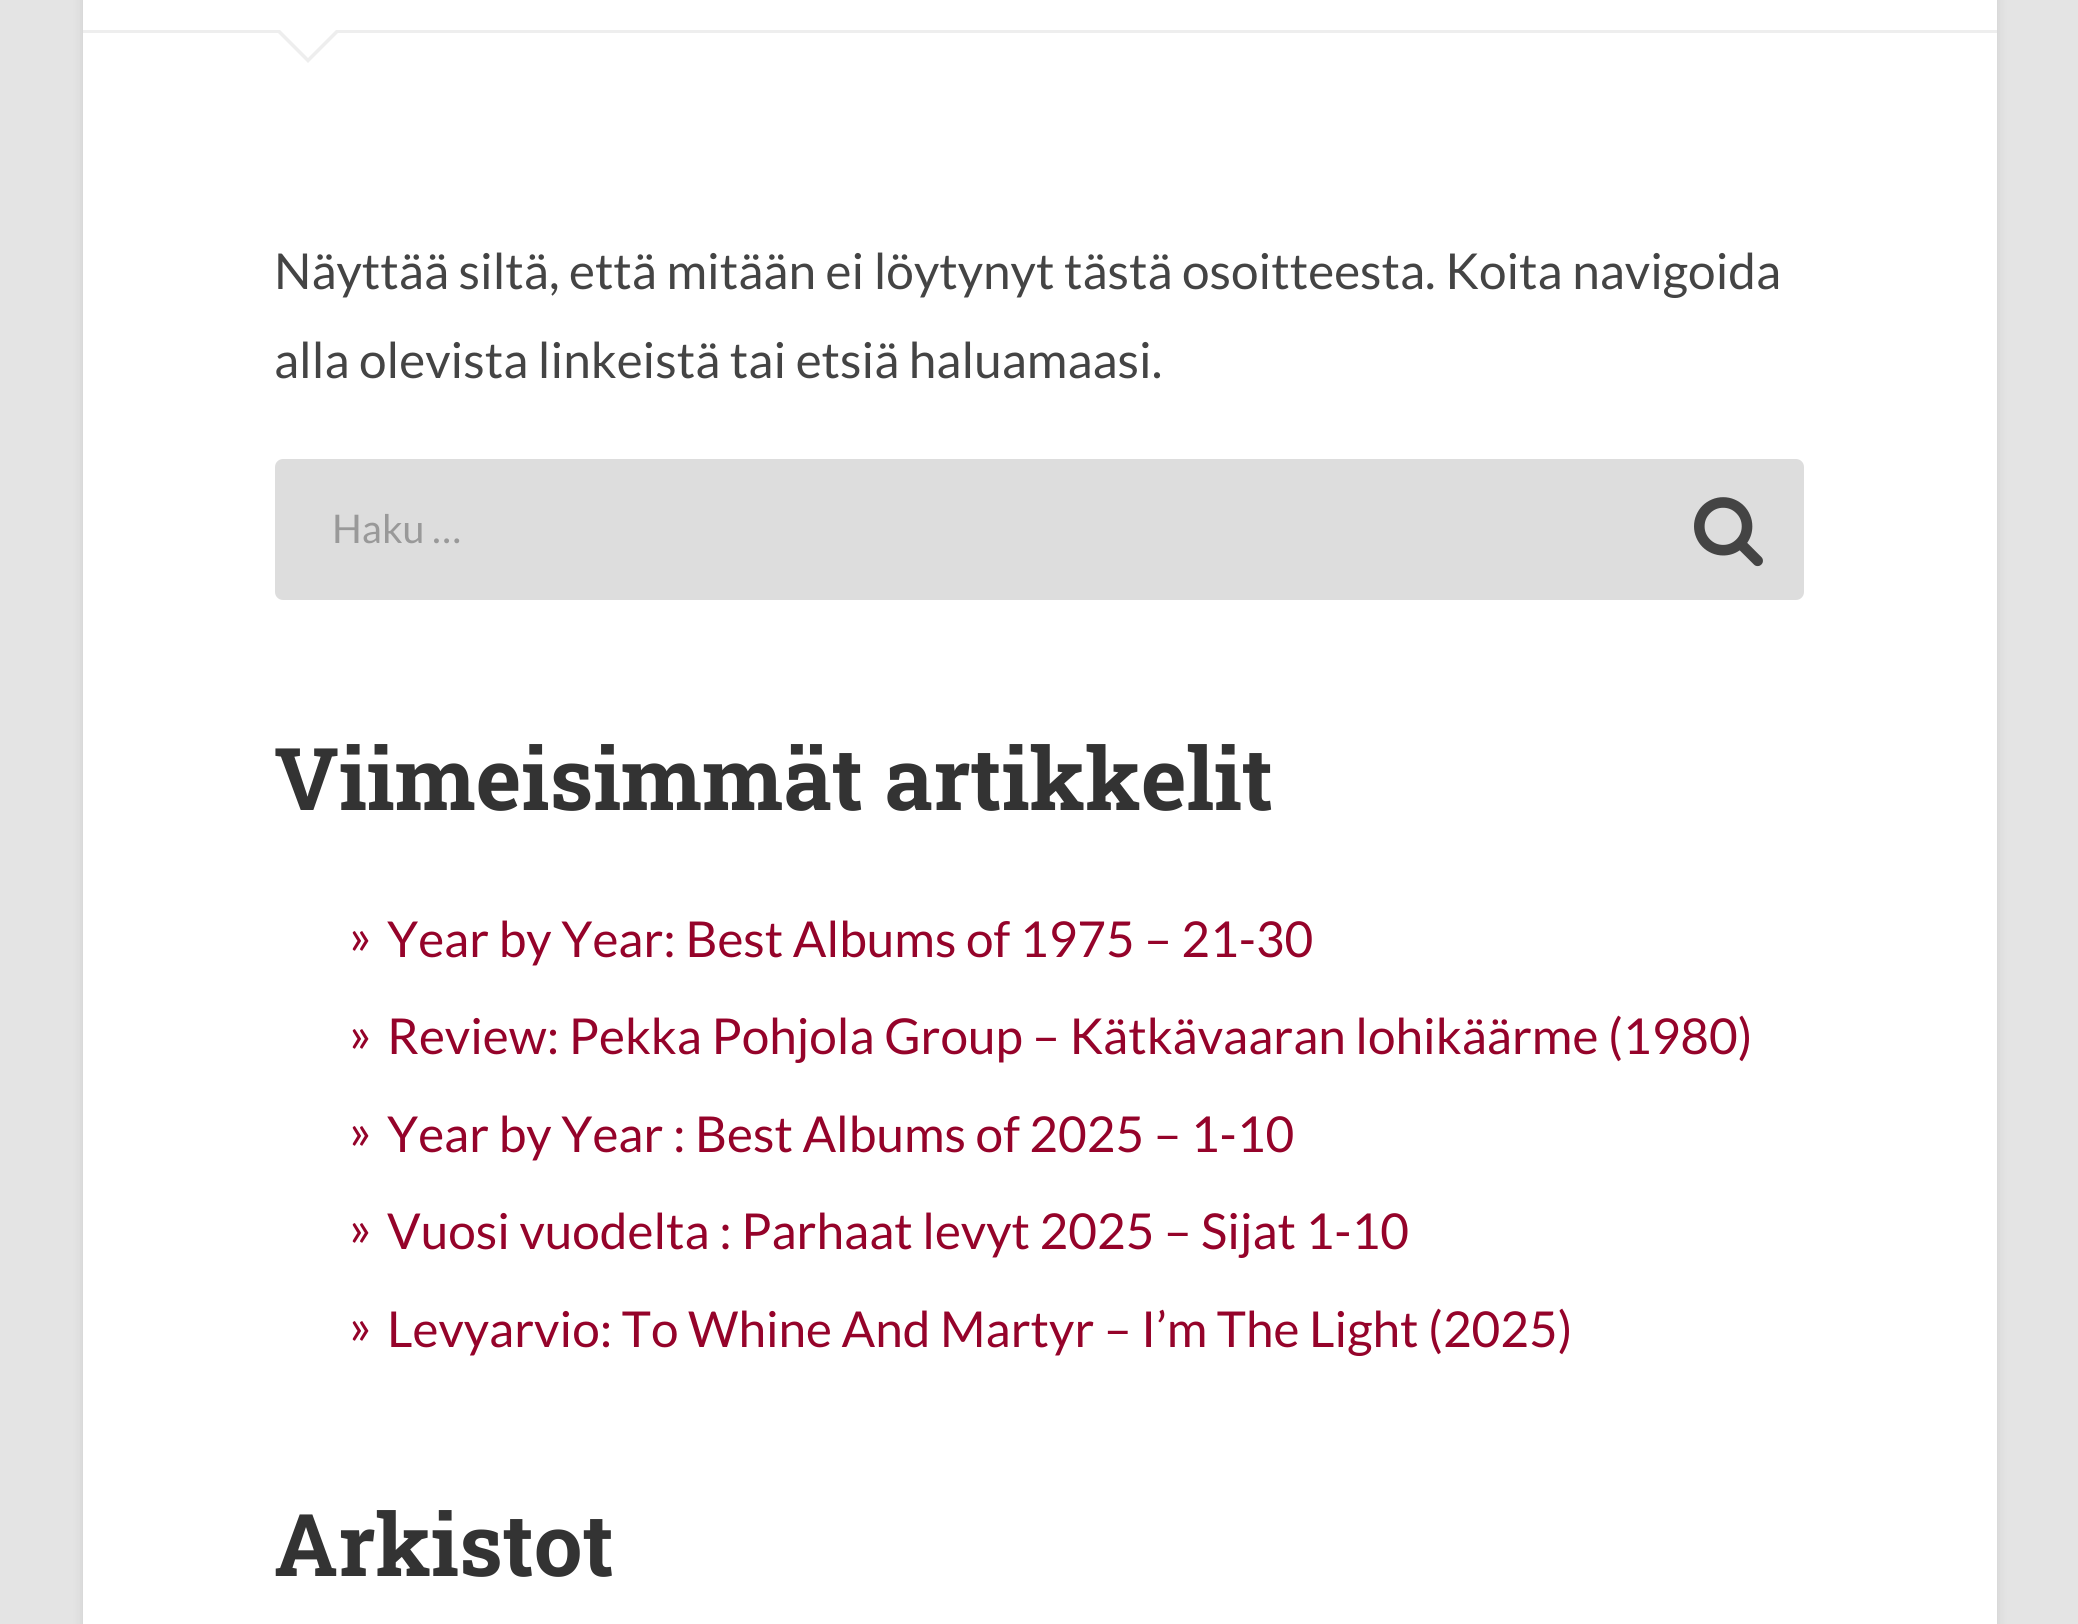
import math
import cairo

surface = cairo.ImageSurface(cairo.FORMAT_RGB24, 2078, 1624)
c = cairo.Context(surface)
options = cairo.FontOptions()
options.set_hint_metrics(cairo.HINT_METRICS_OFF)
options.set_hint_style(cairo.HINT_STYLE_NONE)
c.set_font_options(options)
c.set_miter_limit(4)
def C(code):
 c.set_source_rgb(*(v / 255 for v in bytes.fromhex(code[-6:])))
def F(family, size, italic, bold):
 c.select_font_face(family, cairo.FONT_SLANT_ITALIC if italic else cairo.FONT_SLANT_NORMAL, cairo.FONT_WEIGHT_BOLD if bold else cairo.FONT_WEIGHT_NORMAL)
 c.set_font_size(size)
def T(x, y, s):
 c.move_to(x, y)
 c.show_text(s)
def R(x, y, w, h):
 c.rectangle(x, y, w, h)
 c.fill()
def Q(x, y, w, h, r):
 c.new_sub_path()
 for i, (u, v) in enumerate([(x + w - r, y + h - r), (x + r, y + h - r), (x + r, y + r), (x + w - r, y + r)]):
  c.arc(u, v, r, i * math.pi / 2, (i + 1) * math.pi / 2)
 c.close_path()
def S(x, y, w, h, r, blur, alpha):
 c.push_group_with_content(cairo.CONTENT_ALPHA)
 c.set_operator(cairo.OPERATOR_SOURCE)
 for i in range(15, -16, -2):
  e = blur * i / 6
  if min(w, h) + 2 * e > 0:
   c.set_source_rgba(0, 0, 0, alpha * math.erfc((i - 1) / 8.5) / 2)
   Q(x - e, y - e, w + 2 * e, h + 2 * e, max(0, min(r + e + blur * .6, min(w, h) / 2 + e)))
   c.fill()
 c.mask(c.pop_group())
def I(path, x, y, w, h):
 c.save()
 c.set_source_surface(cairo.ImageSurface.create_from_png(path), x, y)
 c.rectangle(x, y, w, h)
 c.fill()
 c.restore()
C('e4e4e4')
c.paint()
C('000000')
S(83,-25,1914,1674,8,5.5,.1)
C('ffffff')
R(83,0,1914,1624)
C('eeeeee')
R(83,30,1914,3)
c.new_path()
c.move_to(275,30)
c.line_to(341,30)
c.line_to(308,63)
c.close_path()
c.fill()
C('ffffff')
c.new_path()
c.move_to(278,28)
c.line_to(338,28)
c.line_to(308,58)
c.close_path()
c.fill()
F('Lato',49.5,0,0)
C('444444')
T(274,289,'Näyttää siltä, että mitään ei löytynyt tästä osoitteesta. Koita navigoida')
T(274,378,'alla olevista linkeistä tai etsiä haluamaasi.')
C('dddddd')
Q(275,459,1529,141,8)
c.fill()
F('Lato',39.5,0,0)
C('999999')
T(332,543,'Haku …')
I('1.png',1694,497,69,70)
F('Roboto Slab',86.6,0,1)
C('333333')
T(274,810,'Viimeisimmät artikkelit')
F('Lato',49.5,0,0)
C('95032a')
T(349,954,'»')
T(387,957,'Year by Year: Best Albums of 1975 – 21-30')
T(349,1052,'»')
T(387,1054,'Review: Pekka Pohjola Group – Kätkävaaran lohikäärme (1980)')
T(349,1149,'»')
T(387,1152,'Year by Year : Best Albums of 2025 – 1-10')
T(349,1246,'»')
T(387,1249,'Vuosi vuodelta : Parhaat levyt 2025 – Sijat 1-10')
T(349,1344,'»')
T(387,1347,'Levyarvio: To Whine And Martyr – I’m The Light (2025)')
F('Roboto Slab',86.6,0,1)
C('333333')
T(274,1576,'Arkistot')
surface.write_to_png('o.png')
